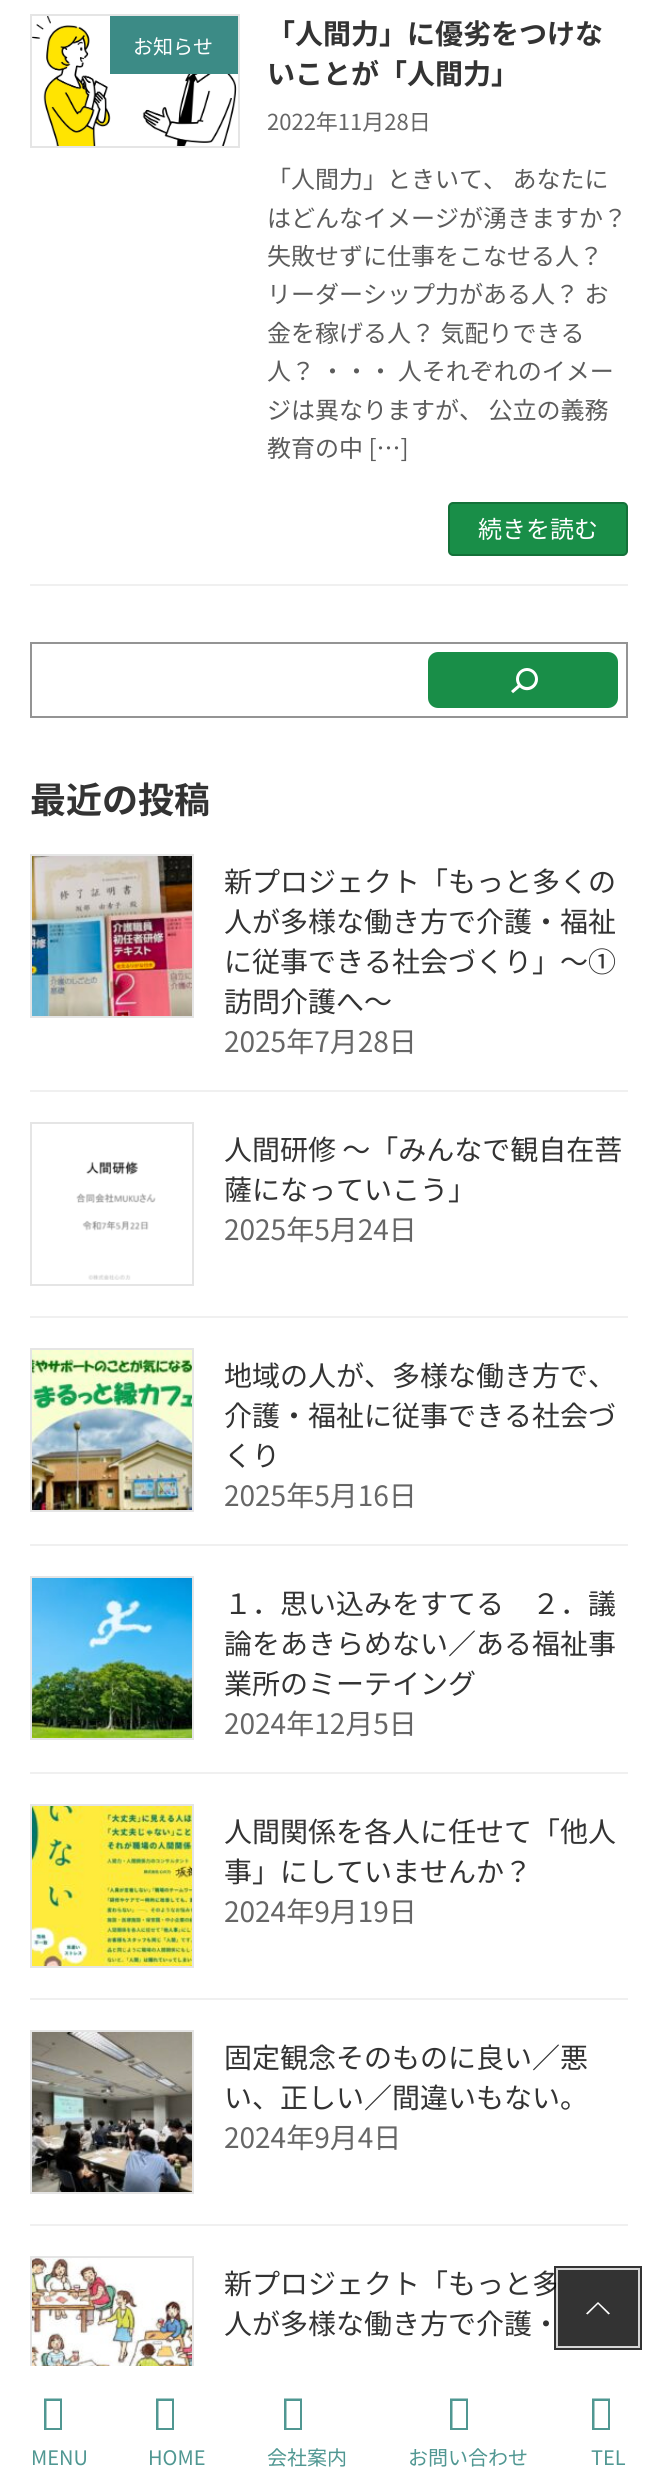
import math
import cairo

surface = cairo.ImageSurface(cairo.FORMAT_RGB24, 657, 2490)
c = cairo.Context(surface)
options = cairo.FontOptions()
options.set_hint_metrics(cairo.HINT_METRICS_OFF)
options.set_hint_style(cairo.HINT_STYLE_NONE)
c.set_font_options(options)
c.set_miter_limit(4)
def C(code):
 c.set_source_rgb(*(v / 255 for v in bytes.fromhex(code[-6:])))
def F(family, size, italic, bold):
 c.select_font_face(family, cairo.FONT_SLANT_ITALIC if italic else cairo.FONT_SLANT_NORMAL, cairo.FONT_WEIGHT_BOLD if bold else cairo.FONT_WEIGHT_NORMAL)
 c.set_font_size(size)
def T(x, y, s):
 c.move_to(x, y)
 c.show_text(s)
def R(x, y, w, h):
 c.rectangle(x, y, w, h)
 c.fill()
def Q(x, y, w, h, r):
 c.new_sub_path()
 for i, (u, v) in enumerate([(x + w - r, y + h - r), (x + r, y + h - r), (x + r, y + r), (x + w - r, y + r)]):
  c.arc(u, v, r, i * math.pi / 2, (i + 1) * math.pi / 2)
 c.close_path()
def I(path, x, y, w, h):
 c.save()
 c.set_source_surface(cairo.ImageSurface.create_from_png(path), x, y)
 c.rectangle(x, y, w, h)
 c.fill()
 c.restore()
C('ffffff')
c.paint()
C('f0f0f0')
R(30,584,598,2)
I('1.png',32,16,206,130)
c.rectangle(31,15,208,132)
C('e5e5e5')
c.stroke()
C('3c8b86')
R(110,16,128,58)
F('Noto Sans JP',20,0,0)
C('ffffff')
T(133,54,'お知らせ')
F('Noto Sans JP',28,0,1)
C('333333')
T(267,44,'「人間力」に優劣をつけな')
T(267,84,'いことが「人間力」')
F('Noto Sans JP',22,0,0)
C('666666')
T(267,130,'2022年11月28日')
F('Noto Sans JP',24,0,0)
C('5c5c5c')
T(267,188,'「人間力」ときいて、 あなたに')
T(267,227,'はどんなイメージが湧きますか？')
T(267,265,'失敗せずに仕事をこなせる人？')
T(267,303,'リーダーシップ力がある人？ お')
T(267,342,'金を稼げる人？ 気配りできる')
T(267,380,'人？ ・・・ 人それぞれのイメー')
T(267,419,'ジは異なりますが、 公立の義務')
T(267,457,'教育の中 […]')
C('198e48')
Q(449,503,178,52,4)
c.fill_preserve()
C('147139')
c.stroke()
C('ffffff')
T(478,538,'続きを読む')
c.rectangle(31,643,596,74)
C('949494')
c.stroke()
C('198e48')
Q(428,652,190,56,10)
c.fill()
I('2.png',511,668,27,26)
F('Noto Sans JP',36,0,1)
C('333333')
T(30,813,'最近の投稿')
C('f0f0f0')
R(30,1090,598,2)
c.rectangle(31,855,162,162)
C('e5e5e5')
c.stroke()
I('3.png',32,856,160,160)
F('Noto Sans JP',28,0,0)
C('333333')
T(224,892,'新プロジェクト「もっと多くの')
T(224,932,'人が多様な働き方で介護・福祉')
T(224,972,'に従事できる社会づくり」～①')
T(224,1012,'訪問介護へ～')
C('666666')
T(224,1052,'2025年7月28日')
C('f0f0f0')
R(30,1316,598,2)
c.rectangle(31,1123,162,162)
C('e5e5e5')
c.stroke()
I('4.png',76,1161,80,119)
C('333333')
T(224,1160,'人間研修 ～「みんなで観自在菩')
T(224,1200,'薩になっていこう」')
C('666666')
T(224,1240,'2025年5月24日')
C('f0f0f0')
R(30,1544,598,2)
c.rectangle(31,1349,162,162)
C('e5e5e5')
c.stroke()
I('5.png',32,1350,160,160)
C('333333')
T(224,1386,'地域の人が、多様な働き方で、')
T(224,1426,'介護・福祉に従事できる社会づ')
T(224,1466,'くり')
C('666666')
T(224,1506,'2025年5月16日')
C('f0f0f0')
R(30,1772,598,2)
c.rectangle(31,1577,162,162)
C('e5e5e5')
c.stroke()
I('6.png',32,1578,160,160)
C('333333')
T(224,1614,'１．思い込みをすてる　２．議')
T(224,1654,'論をあきらめない／ある福祉事')
T(224,1694,'業所のミーテイング')
C('666666')
T(224,1734,'2024年12月5日')
C('f0f0f0')
R(30,1998,598,2)
c.rectangle(31,1805,162,162)
C('e5e5e5')
c.stroke()
I('7.png',32,1806,160,160)
C('333333')
T(224,1842,'人間関係を各人に任せて「他人')
T(224,1882,'事」にしていませんか？')
C('666666')
T(224,1922,'2024年9月19日')
C('f0f0f0')
R(30,2224,598,2)
c.rectangle(31,2031,162,162)
C('e5e5e5')
c.stroke()
I('8.png',32,2032,160,160)
C('333333')
T(224,2068,'固定観念そのものに良い／悪')
T(224,2108,'い、正しい／間違いもない。')
C('666666')
T(224,2148,'2024年9月4日')
c.rectangle(31,2257,162,162)
C('e5e5e5')
c.stroke()
I('9.png',32,2258,160,108)
C('333333')
T(224,2294,'新プロジェクト「もっと多')
T(224,2334,'人が多様な働き方で介護・')
c.rectangle(556,2268,84,80)
c.set_source_rgba(0,0,0,0.8)
c.set_line_width(4)
c.stroke()
c.rectangle(557,2269,82,78)
c.set_source_rgba(1,1,1,0.8)
c.set_line_width(2)
c.stroke()
c.set_source_rgba(0,0,0,0.8)
R(558,2270,80,76)
C('ffffff')
c.new_path()
c.move_to(610,2313.5)
c.line_to(608.5,2314.5)
c.line_to(598,2304)
c.line_to(587.5,2314.5)
c.line_to(586,2313.5)
c.line_to(598,2302)
c.close_path()
c.fill()
R(30,2366,164,54)
C('509792')
c.new_path()
c.move_to(44,2430)
c.line_to(44,2398.5)
c.line_to(62,2398.5)
c.line_to(62,2430)
c.close_path()
c.move_to(46.5,2428)
c.line_to(60,2428)
c.line_to(60,2401)
c.line_to(46.5,2401)
c.close_path()
c.fill()
F('Noto Sans JP',20,0,0)
T(31,2465,'MENU')
c.new_path()
c.move_to(156,2430)
c.line_to(156,2398.5)
c.line_to(174,2398.5)
c.line_to(174,2430)
c.close_path()
c.move_to(158.5,2428)
c.line_to(172,2428)
c.line_to(172,2401)
c.line_to(158.5,2401)
c.close_path()
c.fill()
T(148,2465,'HOME')
c.new_path()
c.move_to(284,2430)
c.line_to(284,2398.5)
c.line_to(302,2398.5)
c.line_to(302,2430)
c.close_path()
c.move_to(286.5,2428)
c.line_to(300,2428)
c.line_to(300,2401)
c.line_to(286.5,2401)
c.close_path()
c.fill()
T(267,2465,'会社案内')
c.new_path()
c.move_to(450,2430)
c.line_to(450,2398.5)
c.line_to(468,2398.5)
c.line_to(468,2430)
c.close_path()
c.move_to(452.5,2428)
c.line_to(466,2428)
c.line_to(466,2401)
c.line_to(452.5,2401)
c.close_path()
c.fill()
T(408,2465,'お問い合わせ')
c.new_path()
c.move_to(592,2430)
c.line_to(592,2398.5)
c.line_to(610,2398.5)
c.line_to(610,2430)
c.close_path()
c.move_to(594.5,2428)
c.line_to(608,2428)
c.line_to(608,2401)
c.line_to(594.5,2401)
c.close_path()
c.fill()
T(591,2465,'TEL')
surface.write_to_png('o.png')
